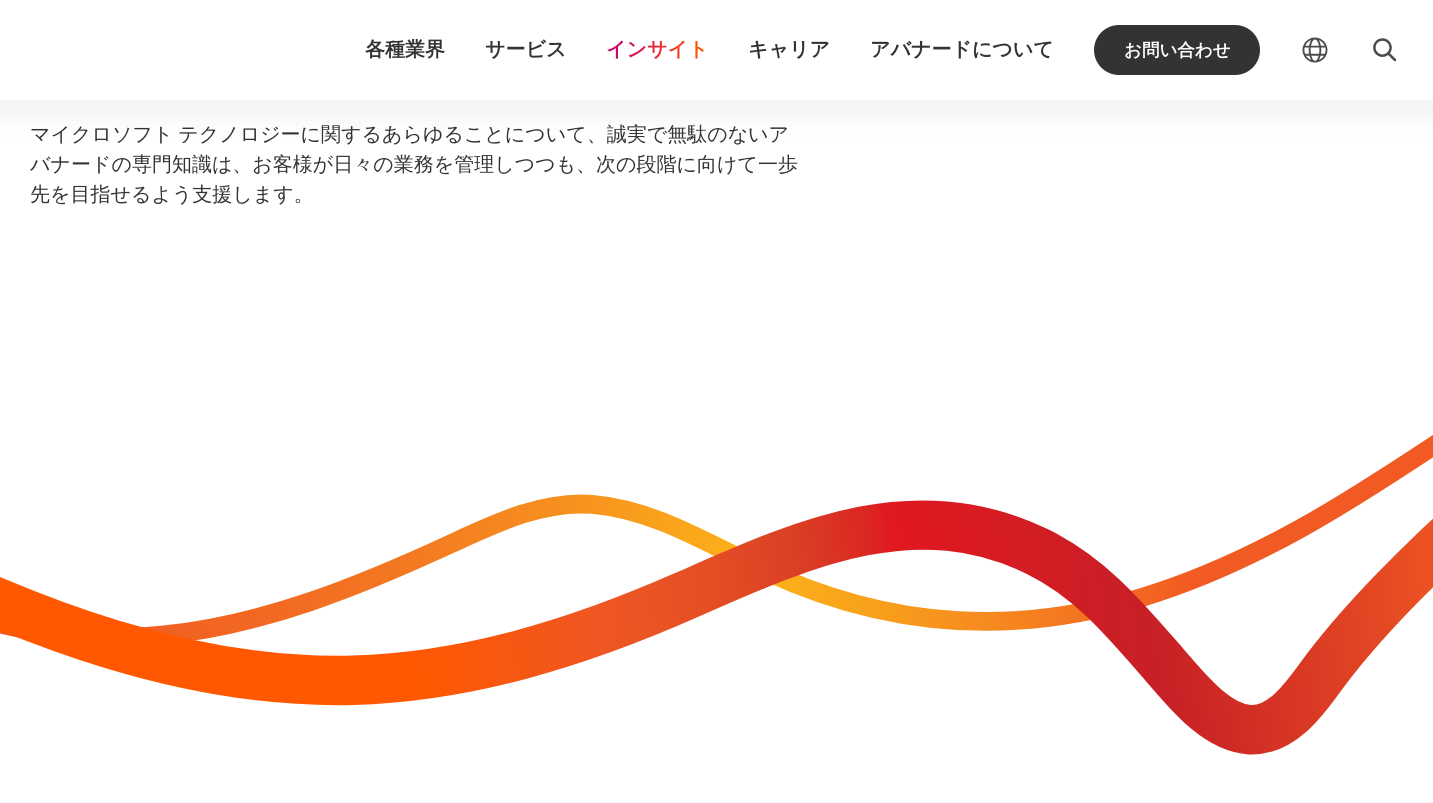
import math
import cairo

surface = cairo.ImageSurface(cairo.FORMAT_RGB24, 1433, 803)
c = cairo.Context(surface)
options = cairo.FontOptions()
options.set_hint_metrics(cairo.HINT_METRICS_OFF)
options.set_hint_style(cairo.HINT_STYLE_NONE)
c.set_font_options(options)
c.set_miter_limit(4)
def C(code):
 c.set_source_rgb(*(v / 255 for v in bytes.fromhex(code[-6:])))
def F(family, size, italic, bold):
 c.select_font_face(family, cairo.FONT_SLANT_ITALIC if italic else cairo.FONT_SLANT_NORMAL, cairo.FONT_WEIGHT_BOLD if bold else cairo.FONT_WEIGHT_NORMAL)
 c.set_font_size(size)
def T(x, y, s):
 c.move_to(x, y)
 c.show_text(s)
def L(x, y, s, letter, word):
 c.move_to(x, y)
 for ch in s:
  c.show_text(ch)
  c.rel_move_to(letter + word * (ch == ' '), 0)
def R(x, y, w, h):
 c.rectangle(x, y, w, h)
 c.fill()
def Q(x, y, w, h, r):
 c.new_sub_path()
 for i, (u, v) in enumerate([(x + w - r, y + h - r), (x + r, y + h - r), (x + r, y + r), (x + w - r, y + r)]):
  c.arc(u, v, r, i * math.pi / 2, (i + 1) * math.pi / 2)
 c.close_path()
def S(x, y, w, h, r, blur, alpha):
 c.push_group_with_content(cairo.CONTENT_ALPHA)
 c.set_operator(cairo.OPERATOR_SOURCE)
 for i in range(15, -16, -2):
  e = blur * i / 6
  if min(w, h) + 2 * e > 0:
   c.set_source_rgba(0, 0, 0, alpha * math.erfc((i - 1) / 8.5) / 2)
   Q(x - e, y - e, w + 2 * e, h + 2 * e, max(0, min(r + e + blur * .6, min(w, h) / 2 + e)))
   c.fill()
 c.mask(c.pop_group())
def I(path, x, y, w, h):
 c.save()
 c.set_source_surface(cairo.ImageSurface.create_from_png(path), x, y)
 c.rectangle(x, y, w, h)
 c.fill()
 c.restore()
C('ffffff')
c.paint()
C('000000')
S(-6,6,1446,113,0,12.5,.05)
C('ffffff')
R(0,0,1433,100)
F('WenQuanYi Zen Hei',20,0,1)
C('333333')
T(365,56,'各種業界')
T(485,56,'サービス')
gradient = cairo.LinearGradient(606,49,708,49)
gradient.add_color_stop_rgba(.13,0.808,0.02,0.412,1)
gradient.add_color_stop_rgba(.95,1,0.345,0,1)
c.set_source(gradient)
T(606,56,'インサイト')
C('333333')
T(748,56,'キャリア')
T(870,56,'アバナードについて')
Q(1094,25,166,50,25)
c.fill()
F('WenQuanYi Zen Hei',17.5,0,1)
C('ffffff')
T(1124,56,'お問い合わせ')
I('1.png',1302,37,26,26)
I('2.png',1373,38,24,24)
F('WenQuanYi Zen Hei Medium',20,0,0)
C('333333')
L(30,141,'マイクロソフト テクノロジーに関するあらゆることについて、誠実で無駄のないア',0,-1)
T(30,171,'バナードの専門知識は、お客様が日々の業務を管理しつつも、次の段階に向けて一歩')
T(30,201,'先を目指せるよう支援します。')
I('3.png',0,434,1433,207)
I('4.png',0,500,1433,255)
surface.write_to_png('o.png')
